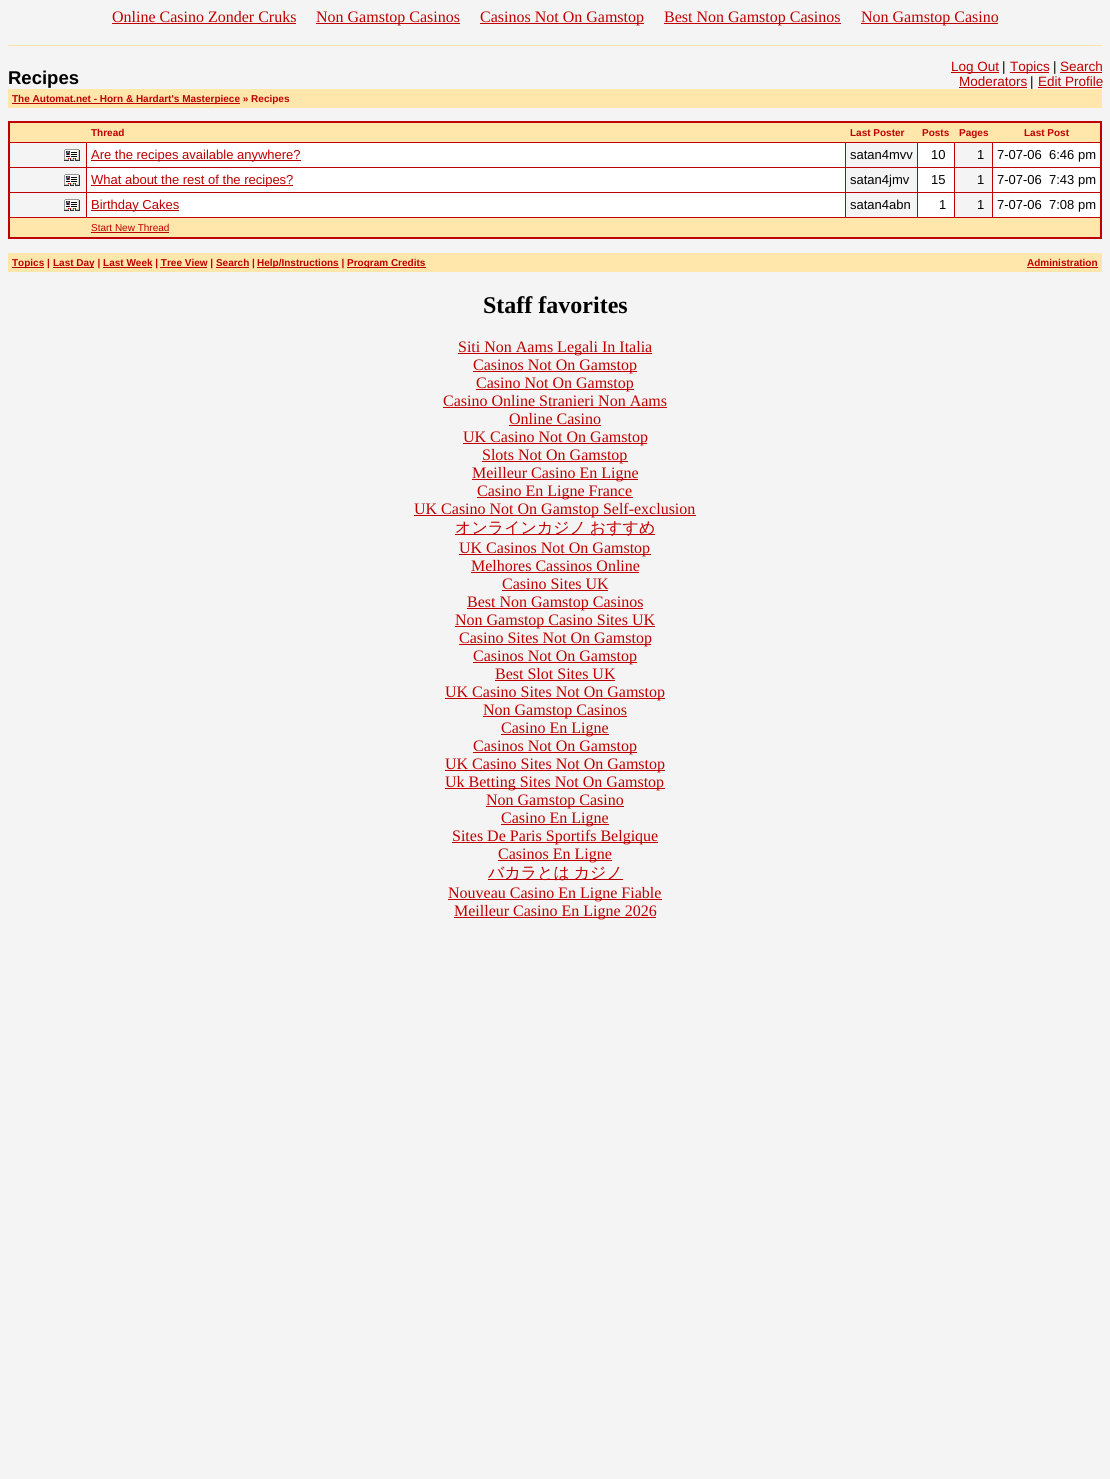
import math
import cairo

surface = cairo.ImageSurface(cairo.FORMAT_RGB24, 1110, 1479)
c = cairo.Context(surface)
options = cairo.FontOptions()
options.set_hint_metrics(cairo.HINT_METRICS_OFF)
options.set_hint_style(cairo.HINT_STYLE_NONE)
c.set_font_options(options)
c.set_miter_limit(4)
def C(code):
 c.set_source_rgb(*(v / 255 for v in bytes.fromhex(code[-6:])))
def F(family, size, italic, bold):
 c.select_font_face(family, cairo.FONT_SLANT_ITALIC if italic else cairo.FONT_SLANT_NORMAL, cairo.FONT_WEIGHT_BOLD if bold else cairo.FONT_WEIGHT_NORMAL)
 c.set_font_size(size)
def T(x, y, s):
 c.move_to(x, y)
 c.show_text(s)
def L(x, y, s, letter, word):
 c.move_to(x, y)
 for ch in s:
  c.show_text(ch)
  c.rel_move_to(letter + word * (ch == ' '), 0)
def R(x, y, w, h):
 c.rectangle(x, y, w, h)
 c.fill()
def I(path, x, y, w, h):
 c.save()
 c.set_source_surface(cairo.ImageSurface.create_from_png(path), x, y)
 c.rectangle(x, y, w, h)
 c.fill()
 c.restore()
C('f4f4f4')
c.paint()
F('Liberation Serif',16,0,0)
C('bf0000')
T(112,22,'Online Casino Zonder Cruks')
R(112,23,184,1)
R(316,23,144,1)
T(316,22,'Non Gamstop Casinos')
R(480,23,164,1)
T(480,22,'Casinos Not On Gamstop')
R(664,23,177,1)
T(664,22,'Best Non Gamstop Casinos')
R(861,23,137,1)
T(861,22,'Non Gamstop Casino')
C('ffe6aa')
R(8,45,1094,1)
F('Liberation Sans',18.5,0,1)
C('000000')
T(8,84,'Recipes')
C('bf0000')
R(951,72,48,1)
F('Liberation Sans',13.5,0,0)
T(951,71,'Log Out')
C('000000')
T(1002,71,'|')
C('bf0000')
R(1010,72,39,1)
T(1010,71,'Topics')
C('000000')
T(1053,71,'|')
C('bf0000')
T(1060,71,'Search')
R(1060,72,42,1)
T(959,86,'Moderators')
R(959,87,68,1)
C('000000')
T(1030,86,'|')
C('bf0000')
T(1038,86,'Edit Profile')
R(1038,87,64,1)
C('ffe6aa')
R(8,89,1094,19)
C('bf0000')
R(12,103,228,1)
F('Liberation Sans',10,0,1)
T(12,102,'The Automat.net - Horn & Hardart\'s Masterpiece » Recipes')
R(8,121,1094,118)
C('ffe6aa')
R(10,123,1090,19)
C('bf0000')
T(91,136,'Thread')
T(850,136,'Last Poster')
T(922,136,'Posts')
T(959,136,'Pages')
T(1024,136,'Last Post')
C('f4f4f4')
R(10,143,76,24)
I('1.png',64,149,16,12)
C('ffffff')
R(87,143,758,24)
C('bf0000')
R(91,160,210,1)
F('Liberation Sans',13,0,0)
T(91,159,'Are the recipes available anywhere?')
C('f4f4f4')
R(846,143,71,24)
C('000000')
T(850,159,'satan4mvv')
C('ffffff')
R(918,143,36,24)
C('000000')
T(931,159,'10')
C('f4f4f4')
R(955,143,37,24)
C('000000')
T(977,159,'1')
C('ffffff')
R(993,143,107,24)
C('000000')
T(997,159,'7-07-06  6:46 pm')
C('f4f4f4')
R(10,168,76,24)
I('1.png',64,174,16,12)
C('ffffff')
R(87,168,758,24)
C('bf0000')
R(91,185,202,1)
T(91,184,'What about the rest of the recipes?')
C('f4f4f4')
R(846,168,71,24)
C('000000')
T(850,184,'satan4jmv')
C('ffffff')
R(918,168,36,24)
C('000000')
T(931,184,'15')
C('f4f4f4')
R(955,168,37,24)
C('000000')
T(977,184,'1')
C('ffffff')
R(993,168,107,24)
C('000000')
T(997,184,'7-07-06  7:43 pm')
C('f4f4f4')
R(10,193,76,24)
I('1.png',64,199,16,12)
C('ffffff')
R(87,193,758,24)
C('bf0000')
R(91,210,88,1)
T(91,209,'Birthday Cakes')
C('f4f4f4')
R(846,193,71,24)
C('000000')
T(850,209,'satan4abn')
C('ffffff')
R(918,193,36,24)
C('000000')
T(939,209,'1')
C('f4f4f4')
R(955,193,37,24)
C('000000')
T(977,209,'1')
C('ffffff')
R(993,193,107,24)
C('000000')
T(997,209,'7-07-06  7:08 pm')
C('ffe6aa')
R(10,218,1090,19)
F('Liberation Sans',10,0,0)
C('bf0000')
T(91,231,'Start New Thread')
R(91,232,78,1)
C('ffe6aa')
R(8,253,1094,19)
C('bf0000')
R(12,267,32,1)
F('Liberation Sans',10,0,1)
T(12,266,'Topics |')
R(53,267,41,1)
T(53,266,'Last Day | Last Week | Tree View | Search |')
R(103,267,49,1)
R(160,267,47,1)
R(216,267,33,1)
R(257,267,82,1)
T(257,266,'Help/Instructions |')
R(347,267,79,1)
T(347,266,'Program Credits')
T(1027,266,'Administration')
R(1027,267,71,1)
F('Liberation Serif',24,0,1)
C('000000')
T(483,313,'Staff favorites')
C('bf0000')
R(458,353,194,1)
F('Liberation Serif',16,0,0)
T(458,352,'Siti Non Aams Legali In Italia')
R(473,371,164,1)
T(473,370,'Casinos Not On Gamstop')
R(476,389,158,1)
T(476,388,'Casino Not On Gamstop')
T(443,406,'Casino Online Stranieri Non Aams')
R(443,407,224,1)
T(509,424,'Online Casino')
R(509,425,92,1)
R(463,443,184,1)
T(463,442,'UK Casino Not On Gamstop')
R(482,461,146,1)
T(482,460,'Slots Not On Gamstop')
R(472,479,166,1)
T(472,478,'Meilleur Casino En Ligne')
R(477,497,156,1)
T(477,496,'Casino En Ligne France')
R(414,515,282,1)
T(414,514,'UK Casino Not On Gamstop Self-exclusion')
R(455,534,200,1)
F('WenQuanYi Zen Hei Medium',16,0,0)
L(455,533,'オンラインカジノ おすすめ',0,-1)
R(459,554,192,1)
F('Liberation Serif',16,0,0)
T(459,553,'UK Casinos Not On Gamstop')
T(471,571,'Melhores Cassinos Online')
R(471,572,168,1)
T(502,589,'Casino Sites UK')
R(502,590,106,1)
R(467,608,176,1)
T(467,607,'Best Non Gamstop Casinos')
R(455,626,200,1)
T(455,625,'Non Gamstop Casino Sites UK')
R(459,644,192,1)
T(459,643,'Casino Sites Not On Gamstop')
R(473,662,164,1)
T(473,661,'Casinos Not On Gamstop')
T(495,679,'Best Slot Sites UK')
R(495,680,120,1)
R(445,698,220,1)
T(445,697,'UK Casino Sites Not On Gamstop')
R(483,716,144,1)
T(483,715,'Non Gamstop Casinos')
R(501,734,108,1)
T(501,733,'Casino En Ligne')
R(473,752,164,1)
T(473,751,'Casinos Not On Gamstop')
R(445,770,220,1)
T(445,769,'UK Casino Sites Not On Gamstop')
R(445,788,220,1)
T(445,787,'Uk Betting Sites Not On Gamstop')
R(486,806,138,1)
T(486,805,'Non Gamstop Casino')
R(501,824,108,1)
T(501,823,'Casino En Ligne')
R(452,842,206,1)
T(452,841,'Sites De Paris Sportifs Belgique')
R(498,860,114,1)
T(498,859,'Casinos En Ligne')
R(488,879,135,1)
F('WenQuanYi Zen Hei Medium',16,0,0)
L(488,878,'バカラとは カジノ',0,-1)
R(448,899,214,1)
F('Liberation Serif',16,0,0)
T(448,898,'Nouveau Casino En Ligne Fiable')
R(454,917,202,1)
T(454,916,'Meilleur Casino En Ligne 2026')
surface.write_to_png('o.png')
